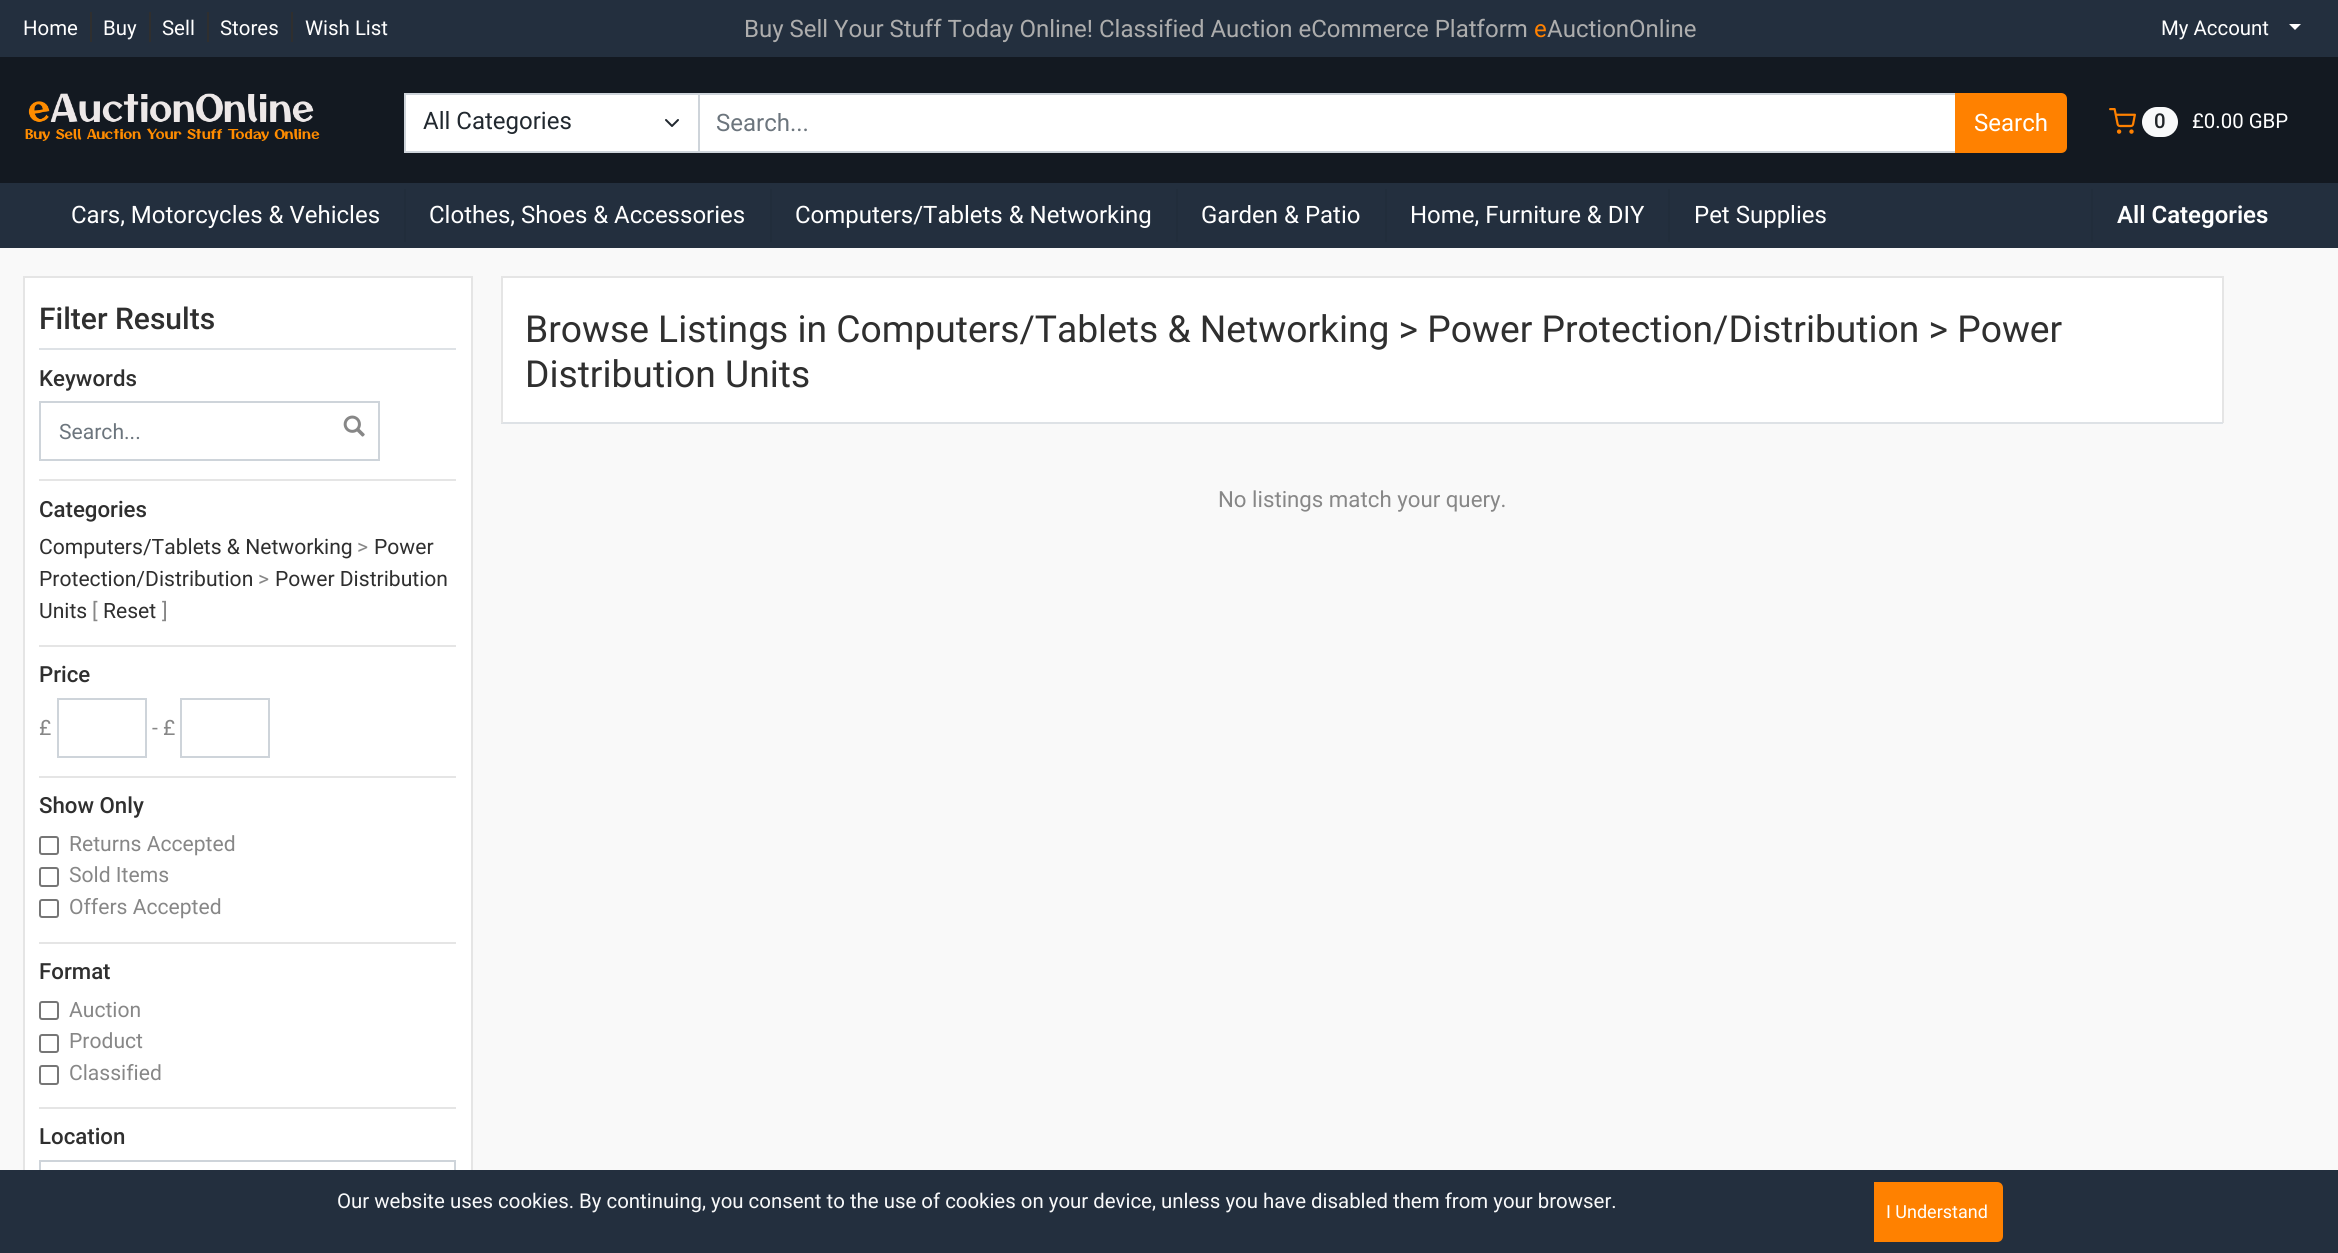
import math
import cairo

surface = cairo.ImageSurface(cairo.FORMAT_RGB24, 2338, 1253)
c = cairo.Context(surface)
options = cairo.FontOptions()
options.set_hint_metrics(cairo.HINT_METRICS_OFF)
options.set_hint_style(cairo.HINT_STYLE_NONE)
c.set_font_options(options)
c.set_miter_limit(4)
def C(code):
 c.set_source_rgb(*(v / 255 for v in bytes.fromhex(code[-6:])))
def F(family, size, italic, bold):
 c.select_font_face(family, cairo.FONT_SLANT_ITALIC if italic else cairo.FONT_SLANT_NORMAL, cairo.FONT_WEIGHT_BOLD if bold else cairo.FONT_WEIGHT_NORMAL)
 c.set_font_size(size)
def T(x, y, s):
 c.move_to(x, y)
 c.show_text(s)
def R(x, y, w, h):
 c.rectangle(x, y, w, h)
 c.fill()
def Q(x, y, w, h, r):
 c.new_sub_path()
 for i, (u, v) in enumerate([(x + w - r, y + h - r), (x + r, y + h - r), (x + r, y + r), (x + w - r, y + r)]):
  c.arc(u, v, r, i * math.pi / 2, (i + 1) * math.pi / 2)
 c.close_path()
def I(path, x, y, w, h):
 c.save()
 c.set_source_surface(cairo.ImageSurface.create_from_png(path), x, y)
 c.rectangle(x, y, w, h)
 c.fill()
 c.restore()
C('f9f9f9')
c.paint()
C('131921')
R(0,57,2338,126)
C('232f3e')
R(0,0,2338,57)
F('Roboto',20.4,0,0)
C('ffffff')
T(23,35,'Home')
C('2f2f2f')
R(90,12,2,30)
C('ffffff')
T(103,35,'Buy')
C('2f2f2f')
R(149,12,2,30)
C('ffffff')
T(162,35,'Sell')
C('2f2f2f')
R(207,12,2,30)
C('ffffff')
T(220,35,'Stores')
C('2f2f2f')
R(291,12,2,30)
C('ffffff')
T(305,35,'Wish List')
F('Roboto',24,0,0)
C('adadad')
T(744,37,'Buy Sell Your Stuff Today Online! Classified Auction eCommerce Platform')
C('ff8100')
T(1534,37,'e')
C('adadad')
T(1547,37,'AuctionOnline')
F('Roboto',20.4,0,0)
C('ffffff')
T(2161,35,'My Account')
c.new_path()
c.move_to(2289,24)
c.line_to(2301,24)
c.line_to(2295,30)
c.close_path()
c.fill()
I('1.png',25,93,295,48)
R(406,95,292,56)
c.rectangle(405,94,298,58)
C('ced4da')
c.stroke()
F('Roboto',24,0,0)
C('21282f')
T(423,129,'All Categories')
c.new_path()
c.move_to(666,120)
c.line_to(672,126)
c.line_to(678,120)
c.set_line_cap(cairo.LINE_CAP_ROUND)
c.set_line_join(cairo.LINE_JOIN_ROUND)
c.stroke()
C('ffffff')
R(700,95,1255,56)
c.rectangle(699,94,1264,58)
C('ced4da')
c.set_line_cap(cairo.LINE_CAP_BUTT)
c.set_line_join(cairo.LINE_JOIN_MITER)
c.stroke()
C('6c757d')
T(716,131,'Search...')
C('ff8100')
c.new_path()
c.move_to(1956,94)
c.line_to(2061,94)
c.curve_to(2064,94,2066,96,2066,99)
c.line_to(2066,147)
c.curve_to(2066,150,2064,152,2061,152)
c.line_to(1956,152)
c.close_path()
c.fill_preserve()
c.stroke()
C('ffffff')
T(1974,131,'Search')
I('2.png',2109,108,27,26)
C('f8f9fa')
Q(2142,107,36,30,15)
c.fill()
F('Roboto Medium',20.4,0,0)
C('212529')
T(2154,128,'0')
F('Roboto',20.4,0,0)
C('ffffff')
T(2192,128,'£0.00 GBP')
C('232f3e')
R(0,183,2338,65)
F('Roboto',24,0,0)
C('ffffff')
T(71,223,'Cars, Motorcycles & Vehicles')
C('212d3b')
R(404,189,2,53)
C('ffffff')
T(429,223,'Clothes, Shoes & Accessories')
C('212d3b')
R(770,189,2,53)
C('ffffff')
T(795,223,'Computers/Tablets & Networking')
C('212d3b')
R(1176,189,2,53)
C('ffffff')
T(1201,223,'Garden & Patio')
C('212d3b')
R(1385,189,2,53)
C('ffffff')
T(1410,223,'Home, Furniture & DIY')
C('212d3b')
R(1668,189,2,53)
C('ffffff')
T(1694,223,'Pet Supplies')
C('212d3b')
R(2091,189,2,53)
F('Roboto SemiBold',24,0,0)
C('ffffff')
T(2117,223,'All Categories')
R(25,278,446,892)
c.rectangle(24,277,448,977)
C('e5e5e5')
c.stroke()
C('dee2e6')
R(39,348,417,2)
F('Roboto Medium',30,0,0)
C('2f2f2f')
T(39,329,'Filter Results')
F('Roboto Medium',22.25,0,0)
T(39,386,'Keywords')
c.rectangle(40,402,339,58)
C('ced4da')
c.stroke()
F('Roboto',21.1,0,0)
C('6c757d')
T(59,439,'Search...')
I('3.png',343,415,22,22)
C('e5e5e5')
R(39,479,417,2)
F('Roboto Medium',22.25,0,0)
C('2f2f2f')
T(39,517,'Categories')
F('Roboto',21.1,0,0)
T(39,554,'Computers/Tablets & Networking')
C('878787')
T(357,554,'>')
C('2f2f2f')
T(374,554,'Power')
T(39,586,'Protection/Distribution')
C('878787')
T(258,586,'>')
C('2f2f2f')
T(275,586,'Power Distribution')
T(39,618,'Units')
C('878787')
T(92,618,'[')
C('2f2f2f')
T(103,618,'Reset')
C('878787')
T(162,618,']')
C('e5e5e5')
R(39,645,417,2)
F('Roboto Medium',22.25,0,0)
C('2f2f2f')
T(39,682,'Price')
F('Roboto',21.1,0,0)
C('878787')
T(39,735,'£')
c.rectangle(58,699,88,58)
C('ced4da')
c.stroke()
C('878787')
T(152,735,'- £')
c.rectangle(181,699,88,58)
C('ced4da')
c.stroke()
C('e5e5e5')
R(39,776,417,2)
F('Roboto Medium',22.25,0,0)
C('2f2f2f')
T(39,813,'Show Only')
Q(40,837,18,17,2)
C('767676')
c.stroke()
F('Roboto',21.1,0,0)
C('878787')
T(69,851,'Returns Accepted')
Q(40,868,18,18,2)
C('767676')
c.stroke()
C('878787')
T(69,882,'Sold Items')
Q(40,900,18,17,2)
C('767676')
c.stroke()
C('878787')
T(69,914,'Offers Accepted')
C('e5e5e5')
R(39,942,417,2)
F('Roboto Medium',22.25,0,0)
C('2f2f2f')
T(39,979,'Format')
Q(40,1002,18,17,2)
C('767676')
c.stroke()
F('Roboto',21.1,0,0)
C('878787')
T(69,1017,'Auction')
Q(40,1035,18,17,2)
C('767676')
c.stroke()
C('878787')
T(69,1048,'Product')
Q(40,1066,18,18,2)
C('767676')
c.stroke()
C('878787')
T(69,1080,'Classified')
C('e5e5e5')
R(39,1107,417,2)
F('Roboto Medium',22.25,0,0)
C('2f2f2f')
T(39,1144,'Location')
c.rectangle(40,1161,415,58)
C('ced4da')
c.stroke()
C('ffffff')
R(503,278,1719,144)
C('e5e5e5')
R(501,276,1722,2)
R(2222,276,2,147)
C('dee2e6')
R(501,422,1722,2)
C('e5e5e5')
R(501,276,2,147)
F('Roboto',37.2,0,0)
C('2f2f2f')
T(525,342,'Browse Listings in Computers/Tablets & Networking > Power Protection/Distribution > Power')
T(525,387,'Distribution Units')
F('Roboto',22.25,0,0)
C('878787')
T(1218,507,'No listings match your query.')
C('232f3e')
R(0,1170,2338,83)
F('Roboto',20.4,0,0)
C('f8f9fa')
T(337,1208,'Our website uses cookies. By continuing, you consent to the use of cookies on your device, unless you have disabled them from your browser.')
C('ff8100')
c.new_path()
c.move_to(1875,1183)
c.line_to(1997,1183)
c.curve_to(2000,1183,2002,1185,2002,1188)
c.line_to(2002,1236)
c.curve_to(2002,1239,2000,1241,1997,1241)
c.line_to(1875,1241)
c.close_path()
c.fill_preserve()
c.stroke()
F('Roboto',18,0,0)
C('ffffff')
T(1886,1218,'I Understand')
surface.write_to_png('o.png')
